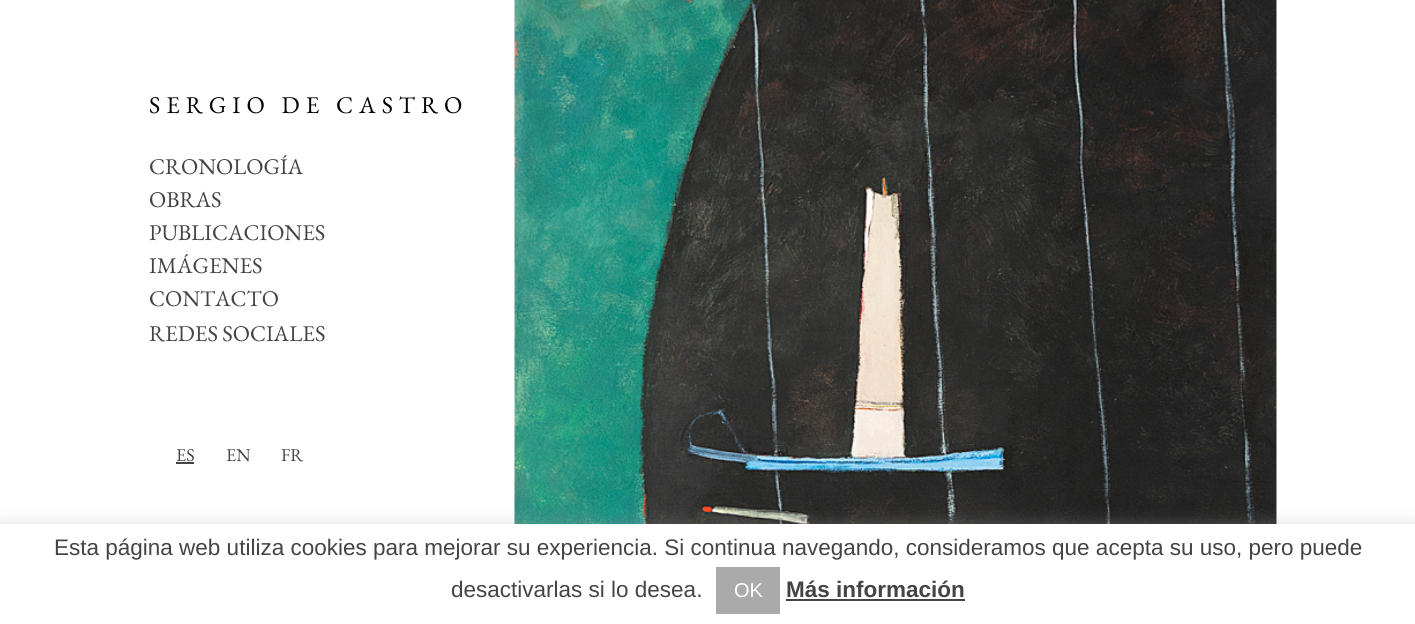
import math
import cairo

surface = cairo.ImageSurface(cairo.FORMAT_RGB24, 1415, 624)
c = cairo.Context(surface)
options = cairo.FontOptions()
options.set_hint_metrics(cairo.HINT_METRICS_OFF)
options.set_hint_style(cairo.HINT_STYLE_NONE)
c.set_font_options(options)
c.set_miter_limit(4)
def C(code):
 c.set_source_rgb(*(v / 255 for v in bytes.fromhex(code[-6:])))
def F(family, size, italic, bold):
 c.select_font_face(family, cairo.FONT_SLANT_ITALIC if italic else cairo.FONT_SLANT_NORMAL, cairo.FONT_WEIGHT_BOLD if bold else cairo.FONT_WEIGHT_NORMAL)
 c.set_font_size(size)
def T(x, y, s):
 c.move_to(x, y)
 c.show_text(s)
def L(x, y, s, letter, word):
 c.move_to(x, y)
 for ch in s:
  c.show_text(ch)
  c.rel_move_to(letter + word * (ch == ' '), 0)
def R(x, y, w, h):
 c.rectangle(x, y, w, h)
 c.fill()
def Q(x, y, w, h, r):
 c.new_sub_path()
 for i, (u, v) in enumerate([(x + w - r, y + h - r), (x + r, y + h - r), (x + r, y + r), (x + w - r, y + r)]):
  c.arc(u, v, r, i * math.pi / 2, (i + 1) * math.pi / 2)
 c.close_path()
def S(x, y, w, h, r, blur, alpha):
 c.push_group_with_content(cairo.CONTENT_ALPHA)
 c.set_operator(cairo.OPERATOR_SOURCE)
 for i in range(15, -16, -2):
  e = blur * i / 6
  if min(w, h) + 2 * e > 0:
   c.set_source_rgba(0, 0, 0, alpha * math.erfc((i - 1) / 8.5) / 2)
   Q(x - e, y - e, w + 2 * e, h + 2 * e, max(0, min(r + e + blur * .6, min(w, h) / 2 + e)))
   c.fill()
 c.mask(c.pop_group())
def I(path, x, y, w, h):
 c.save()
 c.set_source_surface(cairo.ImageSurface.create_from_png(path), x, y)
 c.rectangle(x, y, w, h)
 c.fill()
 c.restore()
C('ffffff')
c.paint()
F('EB Garamond',24,0,0)
C('000000')
L(149,113,'SERGIO DE CASTRO',6,0)
F('EB Garamond',22.5,0,0)
C('444444')
T(149,174,'CRONOLOGÍA')
T(149,207,'OBRAS')
T(149,240,'PUBLICACIONES')
T(149,273,'IMÁGENES')
T(149,306,'CONTACTO')
T(149,341,'REDES SOCIALES')
F('EB Garamond',18,0,0)
T(176,461,'ES')
R(176,462,18,2)
T(226,461,'EN')
T(281,461,'FR')
I('1.png',514,0,763,524)
C('acabab')
S(0,522,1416,101,0,7.5,.3)
C('ffffff')
R(0,524,1415,100)
F('Liberation Sans',22.5,0,0)
C('444444')
T(54,555,'Esta página web utiliza cookies para mejorar su experiencia. Si continua navegando, consideramos que acepta su uso, pero puede')
T(451,597,'desactivarlas si lo desea.')
C('aaaaaa')
R(716,567,64,47)
F('Liberation Sans',20,0,0)
C('ffffff')
T(734,597,'OK')
F('Liberation Sans',22.5,0,1)
C('444444')
T(786,597,'Más información')
R(786,599,179,2)
surface.write_to_png('o.png')
